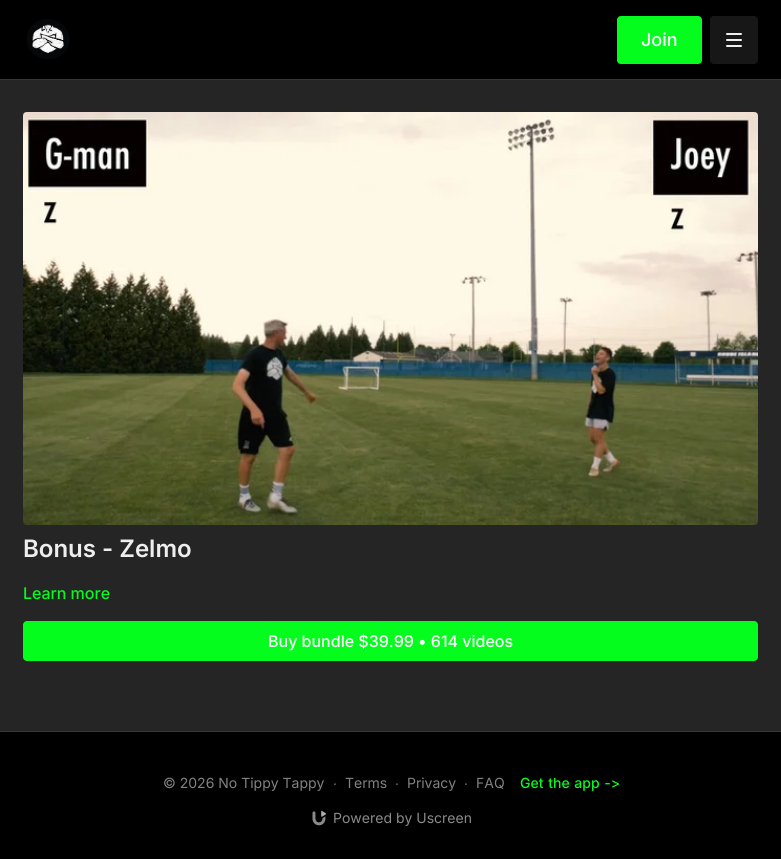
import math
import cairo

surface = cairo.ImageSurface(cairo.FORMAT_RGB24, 781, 859)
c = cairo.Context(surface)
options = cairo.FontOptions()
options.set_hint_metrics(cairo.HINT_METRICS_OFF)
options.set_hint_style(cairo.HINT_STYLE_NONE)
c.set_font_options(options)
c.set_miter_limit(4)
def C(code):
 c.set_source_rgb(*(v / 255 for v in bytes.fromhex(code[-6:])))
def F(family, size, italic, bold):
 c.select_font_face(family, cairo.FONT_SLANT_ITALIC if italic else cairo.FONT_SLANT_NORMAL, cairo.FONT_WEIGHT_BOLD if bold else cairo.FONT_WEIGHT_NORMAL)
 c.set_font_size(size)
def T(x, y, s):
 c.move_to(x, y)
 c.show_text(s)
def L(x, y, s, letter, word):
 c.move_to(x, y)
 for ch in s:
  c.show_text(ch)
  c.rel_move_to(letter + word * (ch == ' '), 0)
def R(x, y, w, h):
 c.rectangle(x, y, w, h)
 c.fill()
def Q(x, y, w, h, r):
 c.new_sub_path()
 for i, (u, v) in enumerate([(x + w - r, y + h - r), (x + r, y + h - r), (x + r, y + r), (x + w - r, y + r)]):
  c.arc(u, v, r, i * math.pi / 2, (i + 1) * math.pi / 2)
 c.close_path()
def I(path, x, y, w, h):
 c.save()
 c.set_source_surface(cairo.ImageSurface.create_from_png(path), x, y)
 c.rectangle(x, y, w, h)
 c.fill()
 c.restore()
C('252525')
c.paint()
C('000000')
R(0,0,781,79)
C('373737')
R(0,79,781,1)
I('1.png',26,19,44,40)
C('04fd1d')
Q(617,16,85,48,4)
c.fill()
F('Inter Medium',18,0,0)
C('ffffff')
T(641,46,'Join')
C('171717')
Q(710,16,48,48,4)
c.fill()
I('2.png',726,33,16,14)
I('3.png',23,112,735,413)
F('Inter SemiBold',24,0,0)
C('eeeeee')
T(23,557,'Bonus - Zelmo')
F('Inter Medium',16,0,0)
C('04fd1d')
T(23,599,'Learn more')
Q(23,621,735,40,4)
c.fill()
C('ffffff')
T(268,647,'Buy bundle $39.99 • 614 videos')
C('000000')
R(0,732,781,127)
C('373737')
R(0,731,781,1)
F('Inter',14,0,0)
C('818181')
T(163,788,'© 2026 No Tippy Tappy')
F('Liberation Sans',14,0,0)
T(333,788,'∙')
F('Inter',14,0,0)
T(345,788,'Terms')
F('Liberation Sans',14,0,0)
T(395,788,'∙')
F('Inter',14,0,0)
T(407,788,'Privacy')
F('Liberation Sans',14,0,0)
T(464,788,'∙')
F('Inter',14,0,0)
T(476,788,'FAQ')
F('Inter Medium',14,0,0)
C('04fd1d')
L(520,788,'Get the app ->',0,1)
I('4.png',312,810,15,16)
F('Inter',14,0,0)
C('8a8a8a')
T(333,823,'Powered by Uscreen')
surface.write_to_png('o.png')
